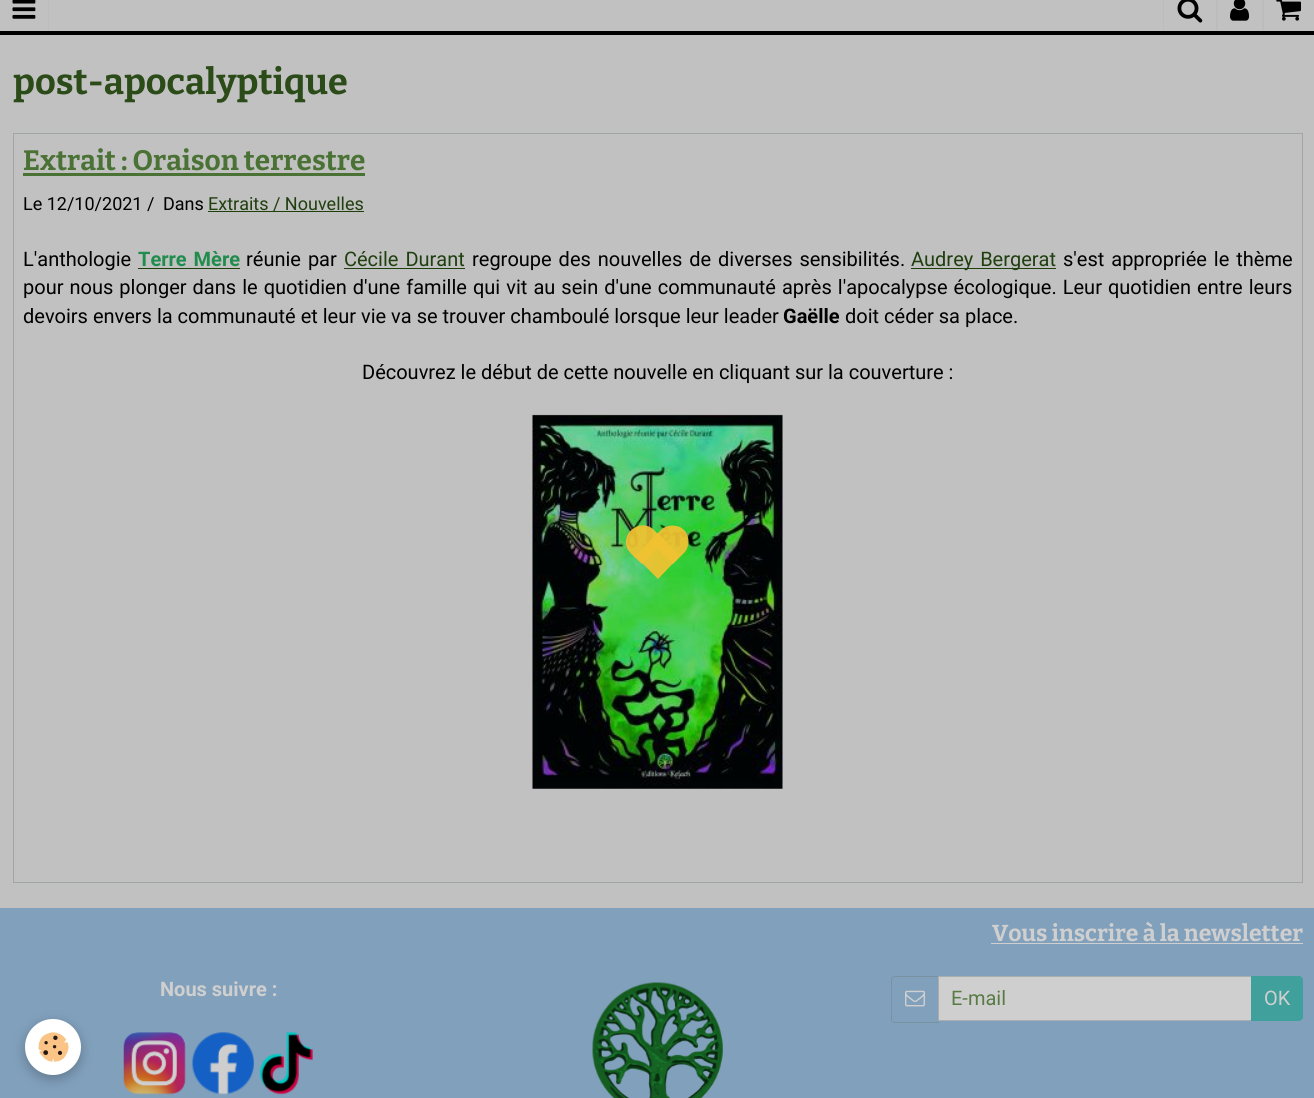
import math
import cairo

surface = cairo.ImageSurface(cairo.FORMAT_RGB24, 1314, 1098)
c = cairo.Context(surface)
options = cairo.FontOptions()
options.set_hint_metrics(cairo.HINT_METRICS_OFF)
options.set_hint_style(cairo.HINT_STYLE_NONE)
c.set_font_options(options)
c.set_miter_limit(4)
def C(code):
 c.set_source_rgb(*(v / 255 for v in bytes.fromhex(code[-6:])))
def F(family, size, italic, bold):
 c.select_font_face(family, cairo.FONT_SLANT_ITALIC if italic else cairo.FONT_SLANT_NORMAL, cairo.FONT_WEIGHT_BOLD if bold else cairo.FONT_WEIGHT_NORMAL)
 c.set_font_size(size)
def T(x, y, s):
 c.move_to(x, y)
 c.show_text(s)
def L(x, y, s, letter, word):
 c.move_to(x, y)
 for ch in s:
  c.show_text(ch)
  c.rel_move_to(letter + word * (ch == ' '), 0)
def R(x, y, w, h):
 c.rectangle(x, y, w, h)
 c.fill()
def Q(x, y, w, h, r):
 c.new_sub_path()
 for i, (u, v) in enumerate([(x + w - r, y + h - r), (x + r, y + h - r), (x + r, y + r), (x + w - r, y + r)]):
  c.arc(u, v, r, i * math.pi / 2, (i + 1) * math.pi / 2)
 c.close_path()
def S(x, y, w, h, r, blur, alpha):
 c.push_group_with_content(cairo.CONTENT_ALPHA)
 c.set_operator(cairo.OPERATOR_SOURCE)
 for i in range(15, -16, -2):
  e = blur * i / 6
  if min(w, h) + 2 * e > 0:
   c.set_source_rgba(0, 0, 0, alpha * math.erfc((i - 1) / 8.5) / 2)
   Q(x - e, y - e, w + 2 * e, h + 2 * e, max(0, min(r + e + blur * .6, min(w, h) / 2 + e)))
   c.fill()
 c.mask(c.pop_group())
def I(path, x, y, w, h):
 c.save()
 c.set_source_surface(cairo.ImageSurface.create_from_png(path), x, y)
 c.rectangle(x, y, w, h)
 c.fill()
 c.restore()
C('81a0bc')
c.paint()
C('c1c1c1')
R(0,0,1314,31)
C('000000')
R(0,31,1314,4)
C('bcbcbc')
c.new_path()
c.move_to(49,-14)
c.line_to(49,31)
c.line_to(48,30)
c.line_to(48,-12)
c.close_path()
c.fill()
I('1.png',12,0,24,19)
R(1163,0,1,31)
I('2.png',1177,0,26,23)
c.new_path()
c.move_to(1216,31)
c.line_to(1216,-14)
c.line_to(1218,-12)
c.line_to(1218,30)
c.close_path()
c.fill()
I('3.png',1230,0,20,21)
c.new_path()
c.move_to(1262,31)
c.line_to(1262,-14)
c.line_to(1264,-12)
c.line_to(1264,30)
c.close_path()
c.fill()
I('4.png',1276,0,25,21)
C('c1c1c1')
R(0,35,1314,873)
F('Bitter',36,0,1)
C('2b4b18')
T(13,94,'post-apocalyptique')
c.rectangle(13.5,133.5,1289,749)
C('a0a5a5')
c.set_line_width(1)
c.stroke()
F('Bitter',28,0,1)
C('4b7235')
T(23,170,'Extrait : Oraison terrestre')
R(23,173,342,3)
F('Roboto',18,0,0)
C('000000')
T(23,210,'Le 12/10/2021 /')
T(163,210,'Dans')
C('203f0f')
R(208,211,156,1)
T(208,210,'Extraits / Nouvelles')
F('Roboto',20,0,0)
C('000000')
T(23,266,'L\'anthologie')
F('Roboto',20,0,1)
C('208d4e')
L(138,266,'Terre Mère',0,2)
C('203f0f')
R(138,268,102,1)
F('Roboto',20,0,0)
C('000000')
L(246,266,'réunie par',0,2)
C('203f0f')
L(344,266,'Cécile Durant',0,2)
R(344,268,121,1)
C('000000')
L(472,266,'regroupe des nouvelles de diverses sensibilités.',0,2)
C('203f0f')
R(911,268,145,1)
L(911,266,'Audrey Bergerat',0,2)
C('000000')
L(1063,266,'s\'est appropriée le thème',0,2)
L(23,294,'pour nous plonger dans le quotidien d\'une famille qui vit au sein d\'une communauté après l\'apocalypse écologique. Leur quotidien entre leurs',0,1.1)
T(23,323,'devoirs envers la communauté et leur vie va se trouver chamboulé lorsque leur leader')
F('Roboto',20,0,1)
T(783,323,'Gaëlle')
F('Roboto',20,0,0)
T(845,323,'doit céder sa place.')
T(362,379,'Découvrez le début de cette nouvelle en cliquant sur la couverture :')
I('5.png',532,414,251,375)
c.set_source_rgba(0.945,0.761,0.196,0.93)
c.new_path()
c.move_to(658,533)
c.line_to(680,556)
c.line_to(658,579)
c.line_to(635,556)
c.close_path()
c.fill()
c.new_path()
c.move_to(654,530)
c.line_to(665,541)
c.line_to(642,564)
c.curve_to(638,560,630,554,627,548)
c.curve_to(621,531,642,518,654,530)
c.close_path()
c.fill()
c.new_path()
c.move_to(684,530)
c.curve_to(690,536,690,547,684,553)
c.line_to(673,564)
c.line_to(650,541)
c.line_to(661,530)
c.curve_to(667,524,678,524,684,530)
c.close_path()
c.fill()
F('Bitter',23,0,1)
C('cfcfcf')
T(992,941,'Vous inscrire à la newsletter')
R(991,943,312,1)
F('Roboto',20,0,1)
T(160,996,'Nous suivre :')
I('6.png',123,1032,63,63)
I('7.png',191,1032,63,63)
I('8.png',259,1032,54,63)
I('9.png',592,982,131,116)
c.new_path()
c.move_to(895,976.5)
c.line_to(938.5,976.5)
c.line_to(938.5,1022.5)
c.line_to(895,1022.5)
c.curve_to(893,1022.5,891.5,1021,891.5,1019)
c.line_to(891.5,980)
c.curve_to(891.5,978,893,976.5,895,976.5)
c.close_path()
C('7a91a2')
c.stroke()
I('10.png',905,990,20,17)
C('cfcfcf')
R(939,977,312,43)
c.rectangle(938.5,976.5,314,44)
C('a8adad')
c.stroke()
F('Roboto',20,0,0)
C('587b45')
T(951,1005,'E-mail')
C('3fa09c')
c.new_path()
c.move_to(1251,976)
c.line_to(1299,976)
c.curve_to(1301,976,1303,978,1303,980)
c.line_to(1303,1017)
c.curve_to(1303,1019,1301,1021,1299,1021)
c.line_to(1251,1021)
c.close_path()
c.fill()
C('cfcfcf')
T(1264,1005,'OK')
C('000000')
S(25,1023,56,56,28,6,.24)
C('ffffff')
c.arc(53,1047,28,0,2 * math.pi)
c.fill()
I('11.png',38,1032,31,30)
surface.write_to_png('o.png')
